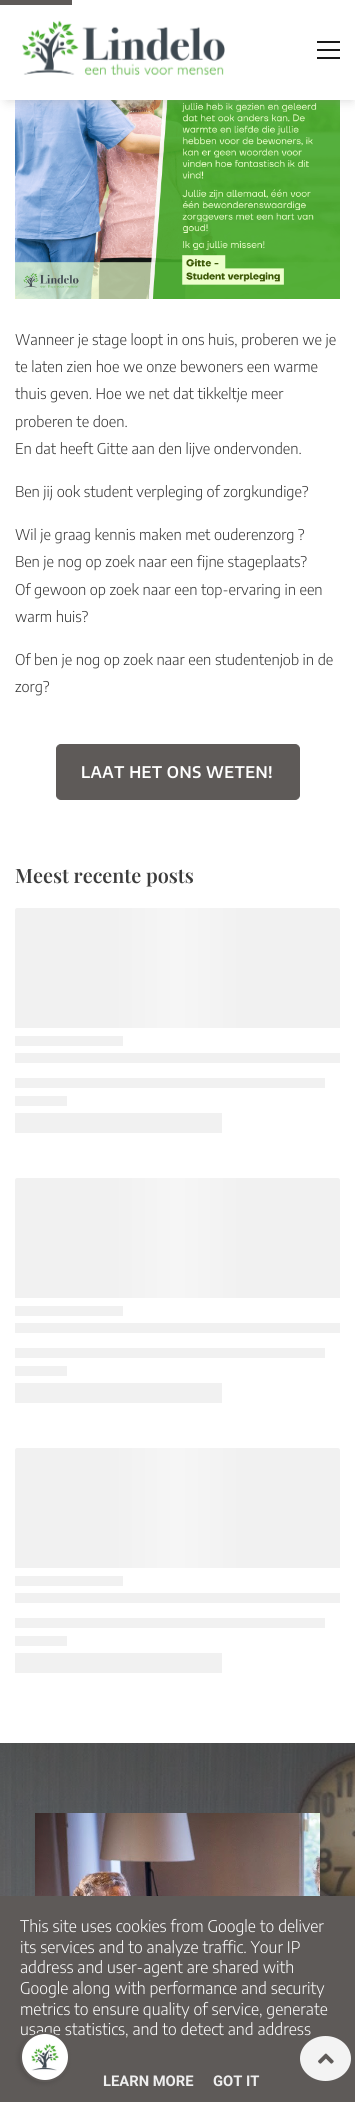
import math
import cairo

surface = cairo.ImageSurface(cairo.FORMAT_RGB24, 355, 2102)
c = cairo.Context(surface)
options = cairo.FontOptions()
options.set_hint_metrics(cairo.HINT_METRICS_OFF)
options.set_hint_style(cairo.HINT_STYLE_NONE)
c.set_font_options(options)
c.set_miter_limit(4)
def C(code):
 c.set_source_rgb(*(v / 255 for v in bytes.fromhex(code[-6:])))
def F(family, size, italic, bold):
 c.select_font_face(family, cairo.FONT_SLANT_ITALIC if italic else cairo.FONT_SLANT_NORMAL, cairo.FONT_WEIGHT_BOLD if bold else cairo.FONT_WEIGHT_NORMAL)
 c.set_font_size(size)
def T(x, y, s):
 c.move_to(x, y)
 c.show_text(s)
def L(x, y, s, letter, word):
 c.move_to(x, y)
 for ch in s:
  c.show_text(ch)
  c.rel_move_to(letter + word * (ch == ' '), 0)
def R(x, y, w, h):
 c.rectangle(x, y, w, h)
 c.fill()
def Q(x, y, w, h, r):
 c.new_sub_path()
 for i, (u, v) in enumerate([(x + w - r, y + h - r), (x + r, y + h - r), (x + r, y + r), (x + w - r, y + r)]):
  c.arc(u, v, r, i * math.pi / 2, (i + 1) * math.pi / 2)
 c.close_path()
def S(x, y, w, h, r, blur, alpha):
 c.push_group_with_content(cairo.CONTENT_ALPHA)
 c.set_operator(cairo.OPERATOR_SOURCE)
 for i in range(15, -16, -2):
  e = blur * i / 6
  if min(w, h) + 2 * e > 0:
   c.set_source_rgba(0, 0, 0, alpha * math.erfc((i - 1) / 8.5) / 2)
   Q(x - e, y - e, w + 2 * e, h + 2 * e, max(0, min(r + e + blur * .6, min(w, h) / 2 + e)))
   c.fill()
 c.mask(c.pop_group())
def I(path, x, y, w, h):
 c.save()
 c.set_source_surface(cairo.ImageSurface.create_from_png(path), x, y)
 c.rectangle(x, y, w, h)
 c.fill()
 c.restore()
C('ffffff')
c.paint()
I('2.png',15,100,325,199)
C('878787')
S(7,-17,345,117,0,5.5,.35)
C('ffffff')
R(0,0,355,100)
C('5e5a58')
R(0,0,72,5)
I('1.png',22,20,203,56)
C('1a1a1a')
R(317,41,23,2)
R(317,49,23,2)
R(317,57,23,2)
F('Encode Sans Condensed Light',14.75,0,0)
C('333333')
T(15,345,'Wanneer je stage loopt in ons huis, proberen we je')
T(15,372,'te laten zien hoe we onze bewoners een warme')
T(15,399,'thuis geven. Hoe we net dat tikkeltje meer')
T(15,427,'proberen te doen.')
T(15,454,'En dat heeft Gitte aan den lijve ondervonden.')
T(15,497,'Ben jij ook student verpleging of zorgkundige?')
T(15,540,'Wil je graag kennis maken met ouderenzorg ?')
T(15,567,'Ben je nog op zoek naar een fijne stageplaats?')
T(15,595,'Of gewoon op zoek naar een top-ervaring in een')
T(15,622,'warm huis?')
T(15,665,'Of ben je nog op zoek naar een studentenjob in de')
T(15,692,'zorg?')
C('5e5a58')
Q(56.5,744.5,243,55,4.5)
c.fill_preserve()
c.set_line_width(1)
c.stroke()
F('Encode Sans Condensed SemiBold',16,0,0)
C('ffffff')
L(81,778,'LAAT HET ONS WETEN!',.5,0)
F('Playfair Display SemiBold',19.75,0,0)
C('3c3c3c')
T(15,883,'Meest recente posts')
gradient = cairo.LinearGradient(-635,968,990,968)
gradient.add_color_stop_rgba(.46,0.945,0.945,0.945,1)
gradient.add_color_stop_rgba(.5,0.965,0.965,0.965,1)
gradient.add_color_stop_rgba(.54,0.945,0.945,0.945,1)
c.set_source(gradient)
c.new_path()
c.move_to(17,908)
c.line_to(338,908)
c.curve_to(339,908,340,909,340,910)
c.line_to(340,1028)
c.line_to(15,1028)
c.line_to(15,910)
c.curve_to(15,909,16,908,17,908)
c.close_path()
c.fill()
C('f1f1f1')
R(15,1036,108,10)
R(15,1053,325,10)
R(15,1078,310,10)
R(15,1096,52,10)
R(15,1113,207,20)
gradient = cairo.LinearGradient(-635,1238,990,1238)
gradient.add_color_stop_rgba(.46,0.945,0.945,0.945,1)
gradient.add_color_stop_rgba(.5,0.965,0.965,0.965,1)
gradient.add_color_stop_rgba(.54,0.945,0.945,0.945,1)
c.set_source(gradient)
c.new_path()
c.move_to(17,1178)
c.line_to(338,1178)
c.curve_to(339,1178,340,1179,340,1180)
c.line_to(340,1298)
c.line_to(15,1298)
c.line_to(15,1180)
c.curve_to(15,1179,16,1178,17,1178)
c.close_path()
c.fill()
C('f1f1f1')
R(15,1306,108,10)
R(15,1323,325,10)
R(15,1348,310,10)
R(15,1366,52,10)
R(15,1383,207,20)
gradient = cairo.LinearGradient(-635,1508,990,1508)
gradient.add_color_stop_rgba(.46,0.945,0.945,0.945,1)
gradient.add_color_stop_rgba(.5,0.965,0.965,0.965,1)
gradient.add_color_stop_rgba(.54,0.945,0.945,0.945,1)
c.set_source(gradient)
c.new_path()
c.move_to(17,1448)
c.line_to(338,1448)
c.curve_to(339,1448,340,1449,340,1450)
c.line_to(340,1568)
c.line_to(15,1568)
c.line_to(15,1450)
c.curve_to(15,1449,16,1448,17,1448)
c.close_path()
c.fill()
C('f1f1f1')
R(15,1576,108,10)
R(15,1593,325,10)
R(15,1618,310,10)
R(15,1636,52,10)
R(15,1653,207,20)
I('3.png',0,1743,355,153)
C('267099')
S(35,1818,285,210,0,20,.08)
I('4.png',35,1813,285,83)
C('5e5a58')
R(0,1896,355,206)
F('Encode Sans Condensed Light',16,0,0)
C('ffffff')
T(20,2035,'usage statistics, and to detect and address')
C('f3f3f3')
c.new_path()
c.move_to(325.5,2036)
c.curve_to(339.5,2036,351,2046,351,2058.5)
c.curve_to(351,2071,339.5,2081,325.5,2081)
c.curve_to(311.5,2081,300,2071,300,2058.5)
c.curve_to(300,2046,311.5,2036,325.5,2036)
c.close_path()
c.fill()
I('5.png',318,2053,16,11)
C('ffffff')
T(20,1932,'This site uses cookies from Google to deliver')
T(20,1953,'its services and to analyze traffic. Your IP')
T(20,1973,'address and user-agent are shared with')
T(20,1994,'Google along with performance and security')
T(20,2015,'metrics to ensure quality of service, generate')
F('Roboto',14.75,0,1)
C('eeeeee')
T(103,2086,'LEARN MORE')
T(213,2086,'GOT IT')
C('000000')
S(18,2034,50,50,25,2.5,.1)
C('ffffff')
c.arc(45,2057,24,0,2 * math.pi)
c.fill_preserve()
C('5e5a58')
c.set_line_width(2)
c.stroke()
I('6.png',31,2043,28,28)
surface.write_to_png('o.png')
